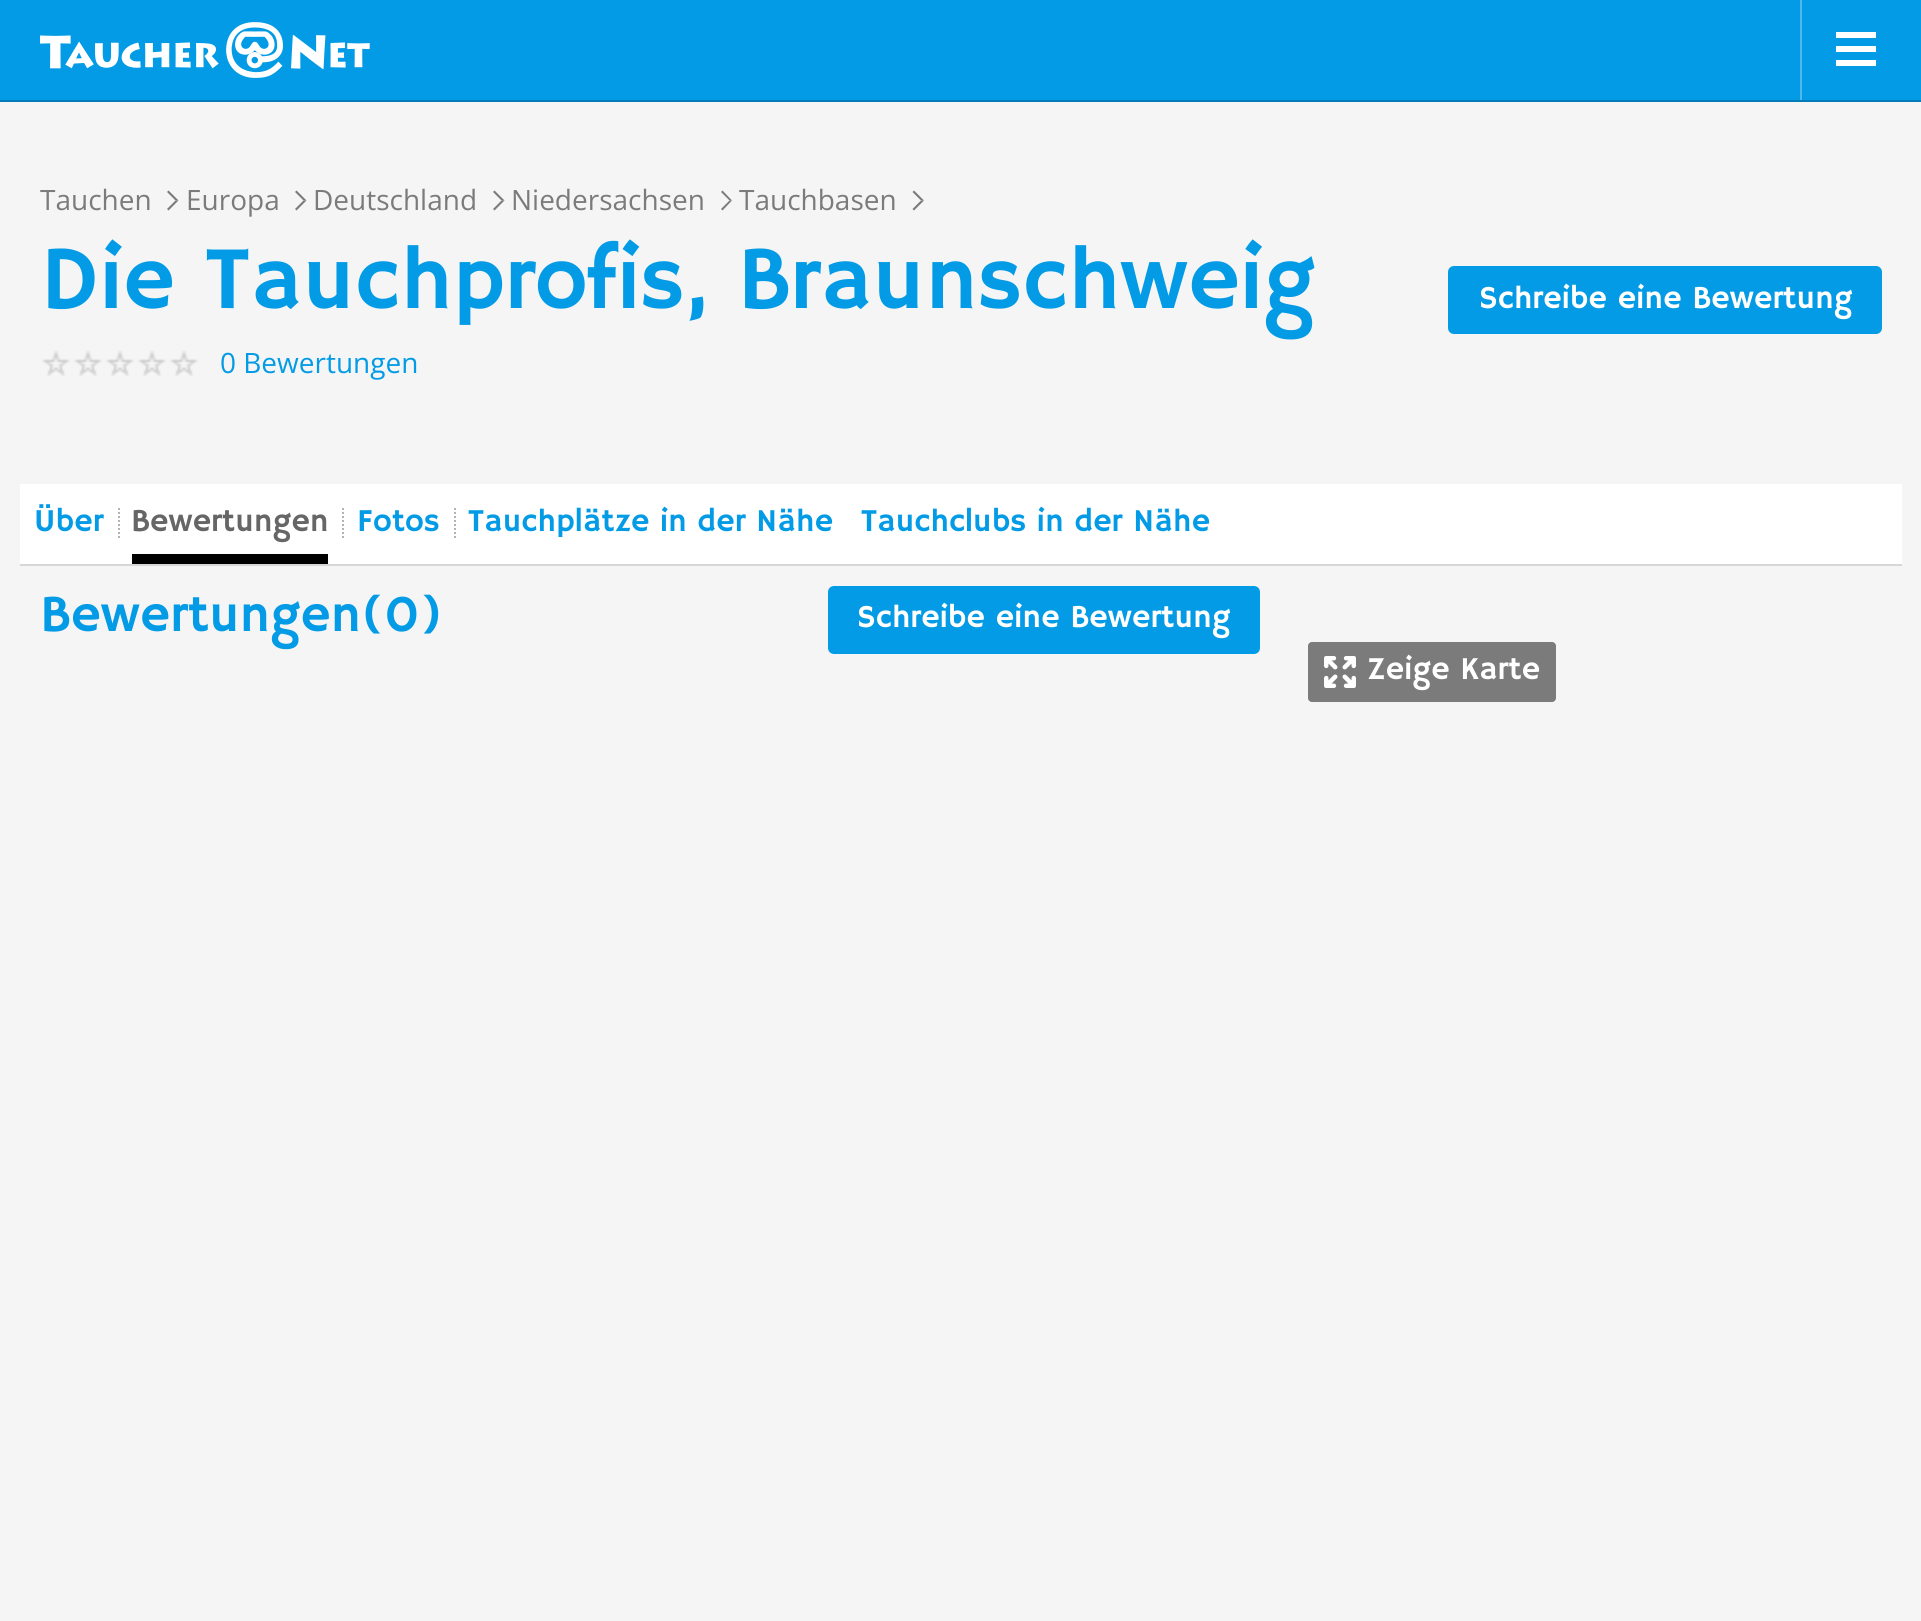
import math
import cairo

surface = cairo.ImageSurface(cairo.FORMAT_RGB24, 1921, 1621)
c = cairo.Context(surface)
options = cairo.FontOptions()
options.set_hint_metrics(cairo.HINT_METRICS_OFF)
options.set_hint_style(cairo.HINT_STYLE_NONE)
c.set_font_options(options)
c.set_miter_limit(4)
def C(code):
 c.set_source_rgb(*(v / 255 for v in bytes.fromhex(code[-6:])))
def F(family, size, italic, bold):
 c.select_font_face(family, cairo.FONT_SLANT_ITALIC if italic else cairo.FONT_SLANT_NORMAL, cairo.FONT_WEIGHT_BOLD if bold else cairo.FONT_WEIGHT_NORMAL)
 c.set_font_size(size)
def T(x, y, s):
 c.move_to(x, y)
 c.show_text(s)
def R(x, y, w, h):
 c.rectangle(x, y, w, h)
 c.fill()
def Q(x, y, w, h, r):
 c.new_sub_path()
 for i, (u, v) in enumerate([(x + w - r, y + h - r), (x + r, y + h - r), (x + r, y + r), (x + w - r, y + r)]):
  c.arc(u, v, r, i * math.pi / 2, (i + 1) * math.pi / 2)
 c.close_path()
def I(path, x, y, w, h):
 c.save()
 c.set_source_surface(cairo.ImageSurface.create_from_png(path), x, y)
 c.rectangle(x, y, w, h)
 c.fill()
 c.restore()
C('f5f5f5')
c.paint()
C('039be5')
R(0,0,1921,100)
C('027cb7')
R(0,100,1921,2)
I('1.png',40,22,330,56)
C('4fb9ed')
R(1800,0,2,100)
C('ffffff')
R(1836,46,40,6)
R(1836,32,40,6)
R(1836,60,40,6)
F('Open Sans',28,0,0)
C('7b7b7b')
T(40,210,'Tauchen')
c.new_path()
c.move_to(168.5,190.5)
c.line_to(178.5,200.5)
c.line_to(175.5,200.5)
c.line_to(167,192)
c.close_path()
c.fill()
c.new_path()
c.move_to(178.5,200.5)
c.line_to(168.5,210.5)
c.line_to(167,209)
c.line_to(175.5,200.5)
c.close_path()
c.fill()
T(186,210,'Europa')
c.new_path()
c.move_to(296.5,190.5)
c.line_to(306.5,200.5)
c.line_to(303.5,200.5)
c.line_to(295,192)
c.close_path()
c.fill()
c.new_path()
c.move_to(306.5,200.5)
c.line_to(296.5,210.5)
c.line_to(295,209)
c.line_to(303.5,200.5)
c.close_path()
c.fill()
T(313,210,'Deutschland')
c.new_path()
c.move_to(494.5,190.5)
c.line_to(504.5,200.5)
c.line_to(501.5,200.5)
c.line_to(493,192)
c.close_path()
c.fill()
c.new_path()
c.move_to(504.5,200.5)
c.line_to(494.5,210.5)
c.line_to(493,209)
c.line_to(501.5,200.5)
c.close_path()
c.fill()
T(511,210,'Niedersachsen')
c.new_path()
c.move_to(722.5,190.5)
c.line_to(732,200.5)
c.line_to(729.5,200.5)
c.line_to(721,192)
c.close_path()
c.fill()
c.new_path()
c.move_to(732,200.5)
c.line_to(722.5,210.5)
c.line_to(721,209)
c.line_to(729.5,200.5)
c.close_path()
c.fill()
T(739,210,'Tauchbasen')
c.new_path()
c.move_to(914,190.5)
c.line_to(924,200.5)
c.line_to(921,200.5)
c.line_to(912.5,192)
c.close_path()
c.fill()
c.new_path()
c.move_to(924,200.5)
c.line_to(914,210.5)
c.line_to(912.5,209)
c.line_to(921,200.5)
c.close_path()
c.fill()
F('Hammersmith One',90,0,0)
C('039be5')
T(40,308,'Die Tauchprofis, Braunschweig')
I('2.png',42,350,156,26)
F('Open Sans',28,0,0)
T(220,373,'0 Bewertungen')
Q(1448,266,434,68,6)
c.fill()
F('Hammersmith One',32,0,0)
C('ffffff')
T(1479,308,'Schreibe eine Bewertung')
R(20,484,1882,80)
C('d7d7d7')
R(20,564,1882,2)
C('039be5')
T(34,531,'Über')
c.new_path()
c.move_to(119,508)
c.line_to(119,540)
C('b3b3b3')
c.set_dash([2,2])
c.stroke()
C('000000')
R(132,554,196,10)
C('666666')
T(131,531,'Bewertungen')
c.new_path()
c.move_to(343,508)
c.line_to(343,540)
C('b3b3b3')
c.stroke()
C('039be5')
T(357,531,'Fotos')
c.new_path()
c.move_to(455,508)
c.line_to(455,540)
C('b3b3b3')
c.stroke()
C('039be5')
T(468,531,'Tauchplätze in der Nähe')
T(861,531,'Tauchclubs in der Nähe')
F('Hammersmith One',52,0,0)
T(40,631,'Bewertungen(0)')
Q(828,586,432,68,6)
c.fill()
F('Hammersmith One',32,0,0)
C('ffffff')
T(857,627,'Schreibe eine Bewertung')
C('7b7b7b')
Q(1308,642,248,60,4)
c.fill()
I('3.png',1324,656,32,32)
C('ffffff')
T(1367,679,'Zeige Karte')
surface.write_to_png('o.png')
